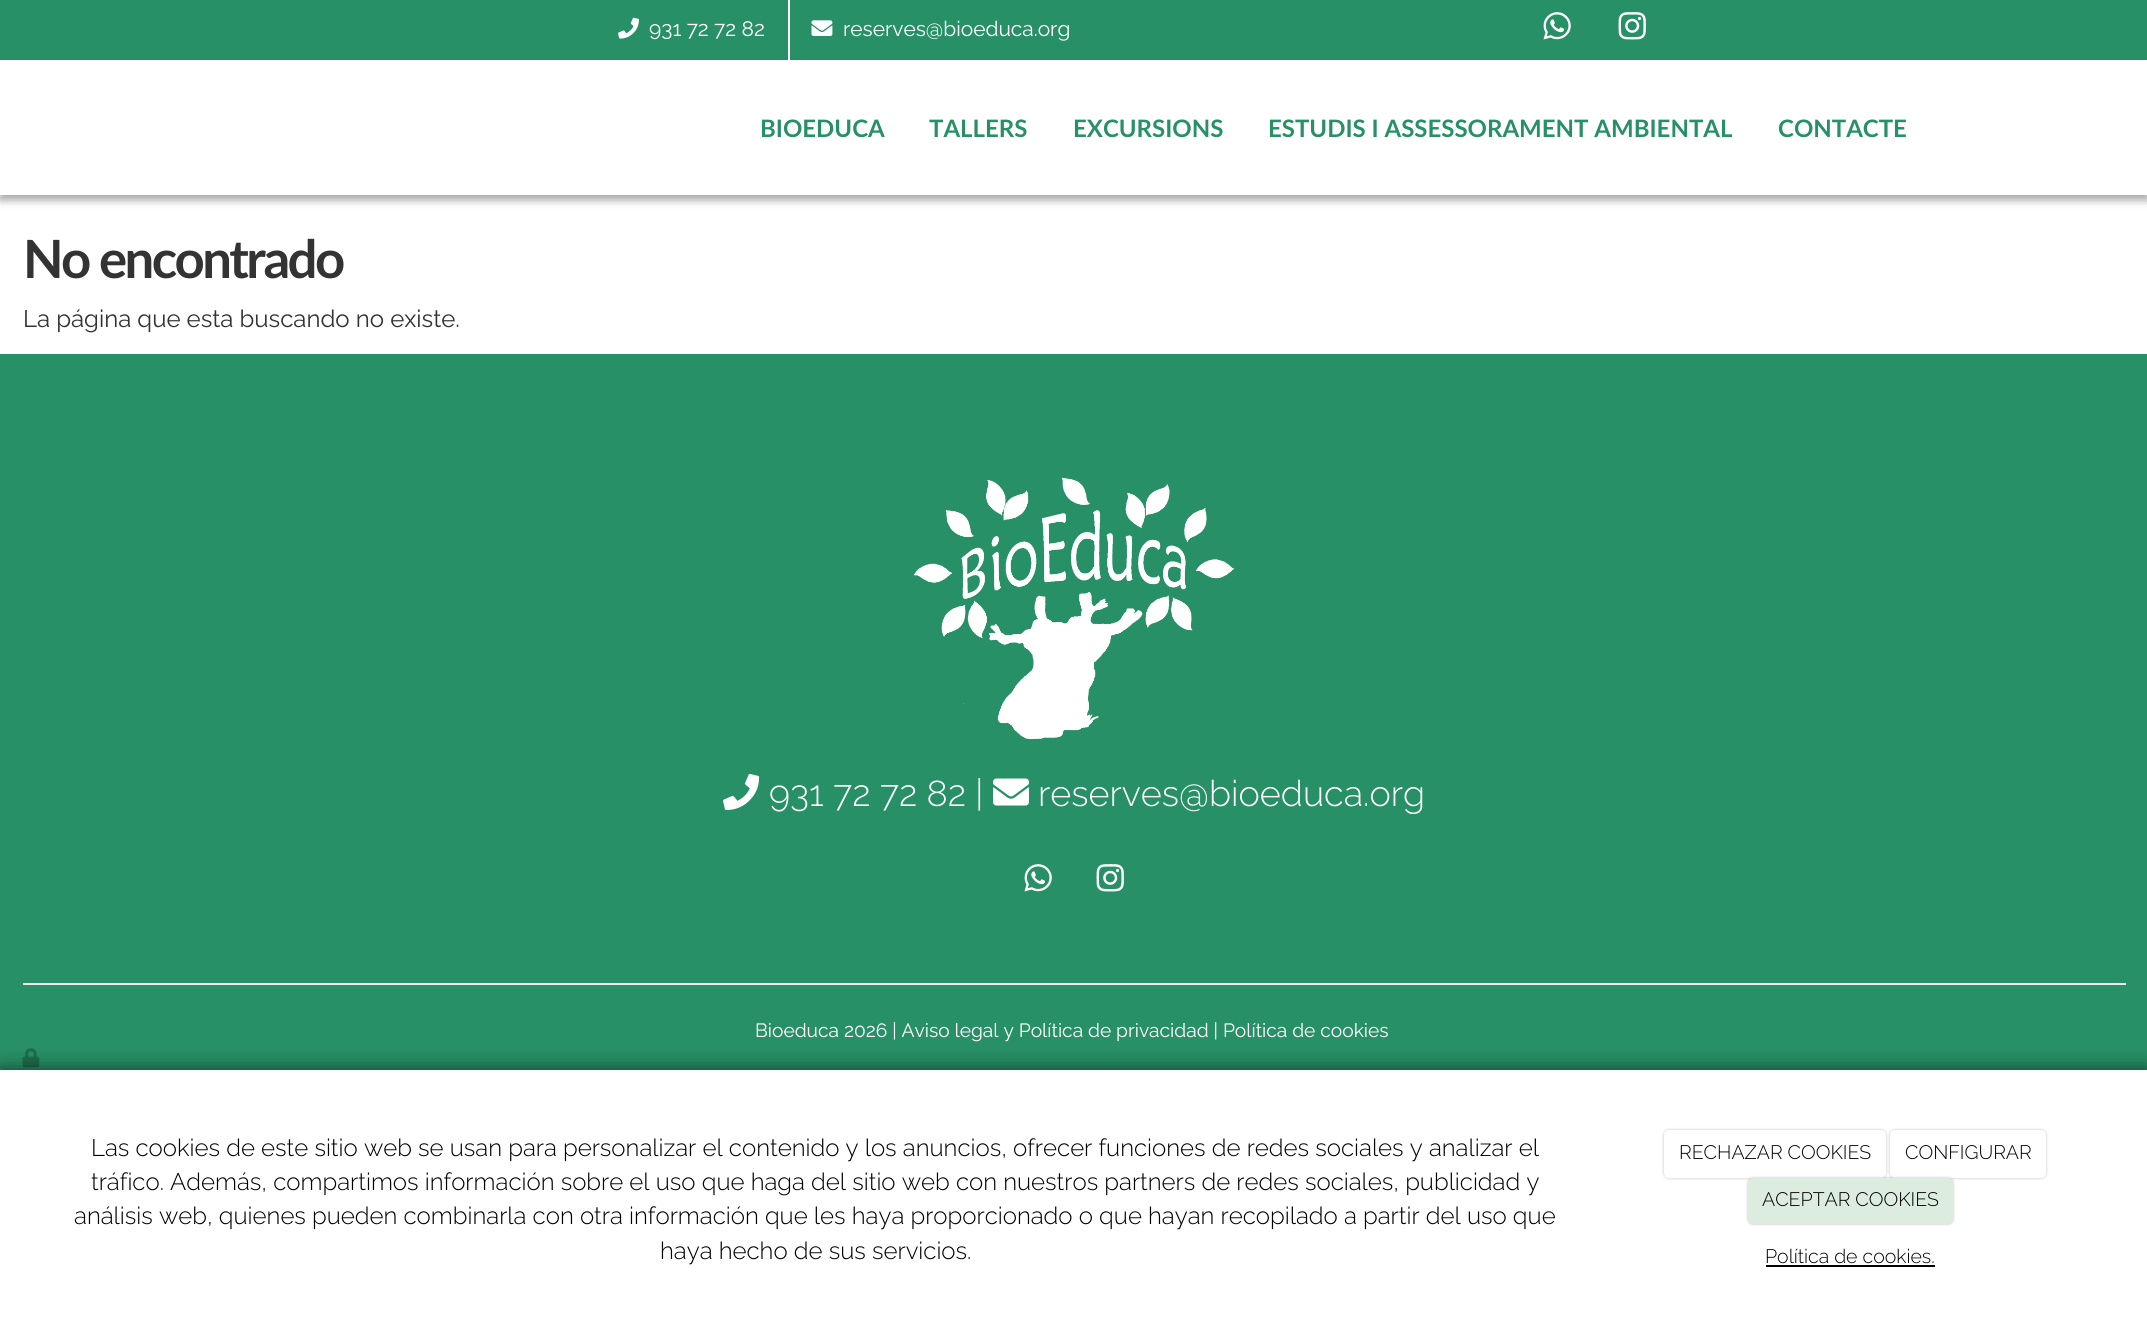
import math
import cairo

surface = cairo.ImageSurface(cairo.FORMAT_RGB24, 2147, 1331)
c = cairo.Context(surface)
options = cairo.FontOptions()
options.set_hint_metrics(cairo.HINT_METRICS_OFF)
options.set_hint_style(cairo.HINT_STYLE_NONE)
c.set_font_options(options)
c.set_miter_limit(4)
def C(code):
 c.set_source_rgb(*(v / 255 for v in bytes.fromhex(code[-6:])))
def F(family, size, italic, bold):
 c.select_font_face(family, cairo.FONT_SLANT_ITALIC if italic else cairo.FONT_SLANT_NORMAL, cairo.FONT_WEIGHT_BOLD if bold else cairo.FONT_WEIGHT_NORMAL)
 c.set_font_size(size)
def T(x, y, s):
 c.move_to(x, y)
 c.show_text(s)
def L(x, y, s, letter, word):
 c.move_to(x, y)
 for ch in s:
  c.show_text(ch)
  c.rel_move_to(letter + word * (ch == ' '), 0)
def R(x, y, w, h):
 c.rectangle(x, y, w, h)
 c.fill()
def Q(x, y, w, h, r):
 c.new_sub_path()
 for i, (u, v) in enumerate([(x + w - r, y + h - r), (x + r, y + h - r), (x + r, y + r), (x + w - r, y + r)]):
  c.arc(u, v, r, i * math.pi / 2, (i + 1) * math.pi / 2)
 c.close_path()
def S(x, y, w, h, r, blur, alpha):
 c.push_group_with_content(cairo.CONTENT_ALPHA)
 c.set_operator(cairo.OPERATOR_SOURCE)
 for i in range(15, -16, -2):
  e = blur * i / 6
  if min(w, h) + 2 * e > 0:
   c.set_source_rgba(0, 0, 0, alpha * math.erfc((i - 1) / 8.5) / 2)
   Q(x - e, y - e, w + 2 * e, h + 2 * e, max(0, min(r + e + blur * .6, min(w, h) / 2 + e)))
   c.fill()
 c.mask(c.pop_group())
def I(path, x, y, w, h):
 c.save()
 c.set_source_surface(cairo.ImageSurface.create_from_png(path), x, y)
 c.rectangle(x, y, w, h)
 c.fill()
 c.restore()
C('ffffff')
c.paint()
C('289067')
R(0,0,2147,60)
c.save()
c.set_fill_rule(cairo.FILL_RULE_EVEN_ODD)
c.new_path()
c.move_to(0,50)
c.line_to(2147,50)
c.line_to(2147,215)
c.line_to(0,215)
c.close_path()
c.move_to(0,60)
c.line_to(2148,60)
c.line_to(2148,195)
c.line_to(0,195)
c.close_path()
c.clip()
C('000000')
S(0,65,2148,135,0,4.5,.23)
c.restore()
c.save()
c.rectangle(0,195,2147,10)
c.clip()
C('000000')
S(0,65,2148,135,0,4.5,.16)
c.restore()
C('ffffff')
R(788,0,2,60)
I('1.png',618,17,21,22)
F('Raleway',20.9,0,0)
T(649,36,'931 72 72 82')
I('2.png',811,20,22,16)
T(843,36,'reserves@bioeduca.org')
I('3.png',1543,12,28,28)
I('4.png',1618,12,28,28)
F('Lato',24,0,1)
C('289067')
T(760,137,'BIOEDUCA')
T(929,137,'TALLERS')
T(1073,137,'EXCURSIONS')
T(1268,137,'ESTUDIS I ASSESSORAMENT AMBIENTAL')
T(1778,137,'CONTACTE')
F('Lato',52.75,0,1)
C('333333')
L(23,278,'No encontrado',-2.6,0)
F('Raleway',24,0,0)
T(23,327,'La página que esta buscando no existe.')
C('289067')
R(0,354,2147,716)
I('5.png',913,477,322,263)
I('6.png',723,774,37,36)
F('Raleway Light',36,0,0)
C('ffffff')
T(769,806,'931 72 72 82 |')
I('7.png',993,778,36,28)
T(1038,806,'reserves@bioeduca.org')
I('3.png',1024,864,28,28)
I('4.png',1096,864,28,28)
C('eeeeee')
R(23,983,2103,2)
F('Raleway',19.2,0,0)
C('ffffff')
T(755,1037,'Bioeduca 2026 | Aviso legal y Política de privacidad | Política de cookies')
I('8.png',22,1048,18,20)
C('000000')
S(0,1070,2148,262,0,10,.6)
C('ffffff')
R(0,1070,2147,261)
F('Raleway Light',24,0,0)
C('000000')
T(91,1156,'Las cookies de este sitio web se usan para personalizar el contenido y los anuncios, ofrecer funciones de redes sociales y analizar el')
T(91,1190,'tráfico. Además, compartimos información sobre el uso que haga del sitio web con nuestros partners de redes sociales, publicidad y')
T(74,1224,'análisis web, quienes pueden combinarla con otra información que les haya proporcionado o que hayan recopilado a partir del uso que')
T(660,1259,'haya hecho de sus servicios.')
C('000000')
S(1664,1130,222,48,5,1.5,.25)
C('ffffff')
Q(1664,1130,222,48,5)
c.fill()
F('Raleway Light',19.5,0,0)
C('000000')
T(1679,1159,'RECHAZAR COOKIES')
C('000000')
S(1890,1130,156,48,5,1.5,.25)
C('ffffff')
Q(1890,1130,156,48,5)
c.fill()
C('000000')
T(1905,1159,'CONFIGURAR')
C('000000')
S(1748,1178,205,46,5,1.5,.25)
C('dcecdf')
Q(1748,1178,205,46,5)
c.fill()
C('000000')
T(1762,1206,'ACEPTAR COOKIES')
T(1765,1263,'Política de cookies.')
R(1766,1265,169,2)
surface.write_to_png('o.png')
